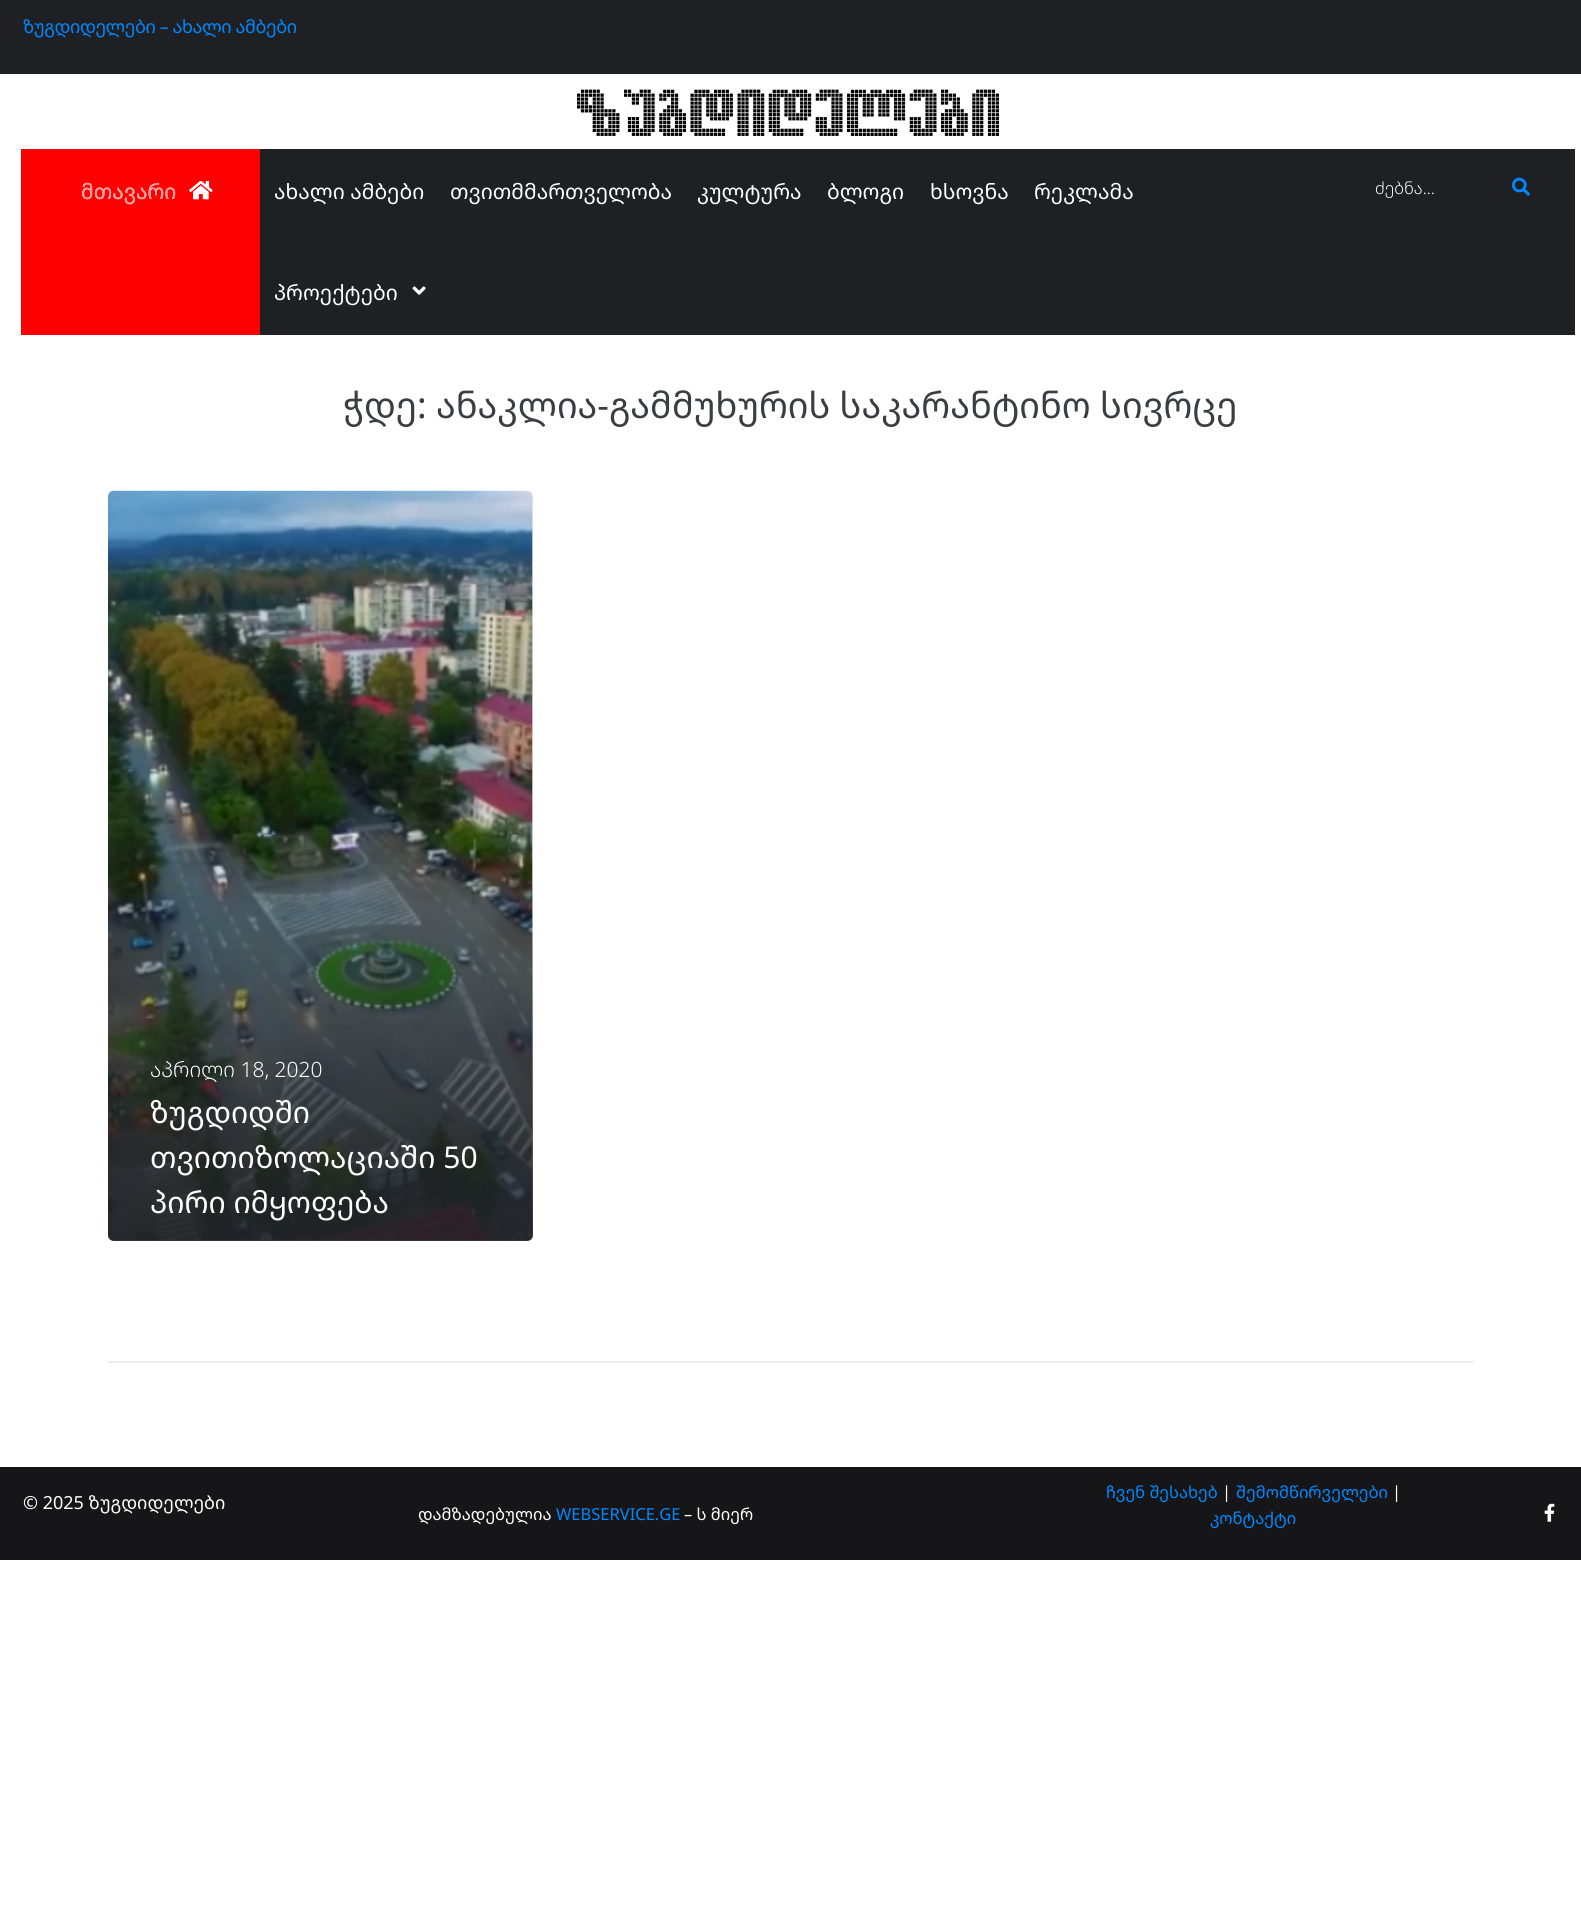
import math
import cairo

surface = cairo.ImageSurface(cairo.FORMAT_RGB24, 1581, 1924)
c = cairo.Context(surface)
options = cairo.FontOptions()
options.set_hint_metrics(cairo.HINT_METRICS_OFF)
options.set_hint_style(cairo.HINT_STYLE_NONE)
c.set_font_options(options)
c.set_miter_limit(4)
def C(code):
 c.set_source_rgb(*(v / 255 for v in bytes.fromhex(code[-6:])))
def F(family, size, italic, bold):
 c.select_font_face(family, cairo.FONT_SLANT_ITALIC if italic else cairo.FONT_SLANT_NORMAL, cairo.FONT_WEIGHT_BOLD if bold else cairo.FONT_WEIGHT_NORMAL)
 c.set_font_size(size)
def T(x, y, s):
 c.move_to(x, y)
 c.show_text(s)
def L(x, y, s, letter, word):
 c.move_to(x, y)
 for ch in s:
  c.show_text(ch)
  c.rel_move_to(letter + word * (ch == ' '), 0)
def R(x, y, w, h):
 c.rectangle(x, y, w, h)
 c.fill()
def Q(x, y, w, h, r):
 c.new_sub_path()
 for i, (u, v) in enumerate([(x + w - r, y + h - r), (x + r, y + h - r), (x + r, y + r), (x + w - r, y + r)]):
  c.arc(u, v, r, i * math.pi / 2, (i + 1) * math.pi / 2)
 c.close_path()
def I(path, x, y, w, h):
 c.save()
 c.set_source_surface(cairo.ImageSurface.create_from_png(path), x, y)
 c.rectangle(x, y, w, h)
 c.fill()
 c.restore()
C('ffffff')
c.paint()
C('1f2024')
R(0,0,1581,74)
F('Noto Sans Georgian',18,0,0)
C('0088ff')
L(23,33,'ზუგდიდელები – ახალი ამბები',-.4,0)
F('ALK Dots',45,0,1)
C('000000')
T(577,127,'ზუგდიდელები')
C('ff0000')
R(21,149,239,186)
F('Noto Sans Georgian',21,0,0)
C('ffffff')
T(81,199,'მთავარი')
I('1.png',189,180,24,20)
C('ff9b9b')
T(81,199,'მთავარი')
C('1f2024')
R(260,149,1315,186)
C('ffffff')
T(274,199,'ახალი ამბები')
T(450,199,'თვითმმართველობა')
T(697,199,'კულტურა')
T(827,199,'ბლოგი')
T(930,199,'ხსოვნა')
T(1034,199,'რეკლამა')
T(274,300,'პროექტები')
I('2.png',412,286,14,9)
c.save()
c.rectangle(1376,176,108,22)
c.clip()
F('Noto Sans Georgian Light',16.5,0,0)
T(1375,194,'ძებნა...')
c.restore()
I('3.png',1512,177,18,19)
F('Noto Sans Georgian',36,0,0)
C('3b3d42')
T(343,418,'ჭდე: ანაკლია-გამმუხურის საკარანტინო სივრცე')
I('4.png',108,490,425,751)
c.set_source_rgba(0,0,0,0.1)
Q(108,491,425,750,6)
c.fill()
gradient = cairo.LinearGradient(320,791,320,1241)
gradient.add_color_stop_rgba(0,0.478,0.737,1,0)
gradient.add_color_stop_rgba(.15,0.129,0.141,0.161,0)
gradient.add_color_stop_rgba(.76,0.129,0.141,0.161,.66)
gradient.add_color_stop_rgba(.97,0.129,0.141,0.161,.89)
gradient.add_color_stop_rgba(.98,0.129,0.141,0.161,.9)
c.set_source(gradient)
c.new_path()
c.move_to(108,791)
c.line_to(533,791)
c.line_to(533,1235)
c.curve_to(533,1238.5,530.5,1241,527,1241)
c.line_to(114,1241)
c.curve_to(110.5,1241,108,1238.5,108,1235)
c.close_path()
c.fill()
F('Noto Sans Georgian Light',21,0,0)
C('ffffff')
T(150,1077,'აპრილი 18, 2020')
F('Noto Sans Georgian',30,0,0)
T(150,1123,'ზუგდიდში')
T(150,1168,'თვითიზოლაციაში 50')
T(150,1213,'პირი იმყოფება')
C('ebeced')
R(108,1361,1365,2)
C('161619')
R(0,1467,1581,93)
F('Noto Sans Georgian',18,0,0)
C('ffffff')
T(23,1509,'© 2025 ზუგდიდელები')
F('Noto Sans Georgian',16.5,0,0)
T(418,1520,'დამზადებულია')
C('0088ff')
T(556,1520,'WEBSERVICE.GE')
C('ffffff')
T(684,1520,'– ს მიერ')
C('0088ff')
T(1106,1498,'ჩვენ შესახებ')
C('ffffff')
T(1222,1498,'|')
C('0088ff')
T(1236,1498,'შემომწირველები')
C('ffffff')
T(1392,1498,'|')
C('0088ff')
T(1210,1524,'კონტაქტი')
I('5.png',1544,1503,11,19)
surface.write_to_png('o.png')
